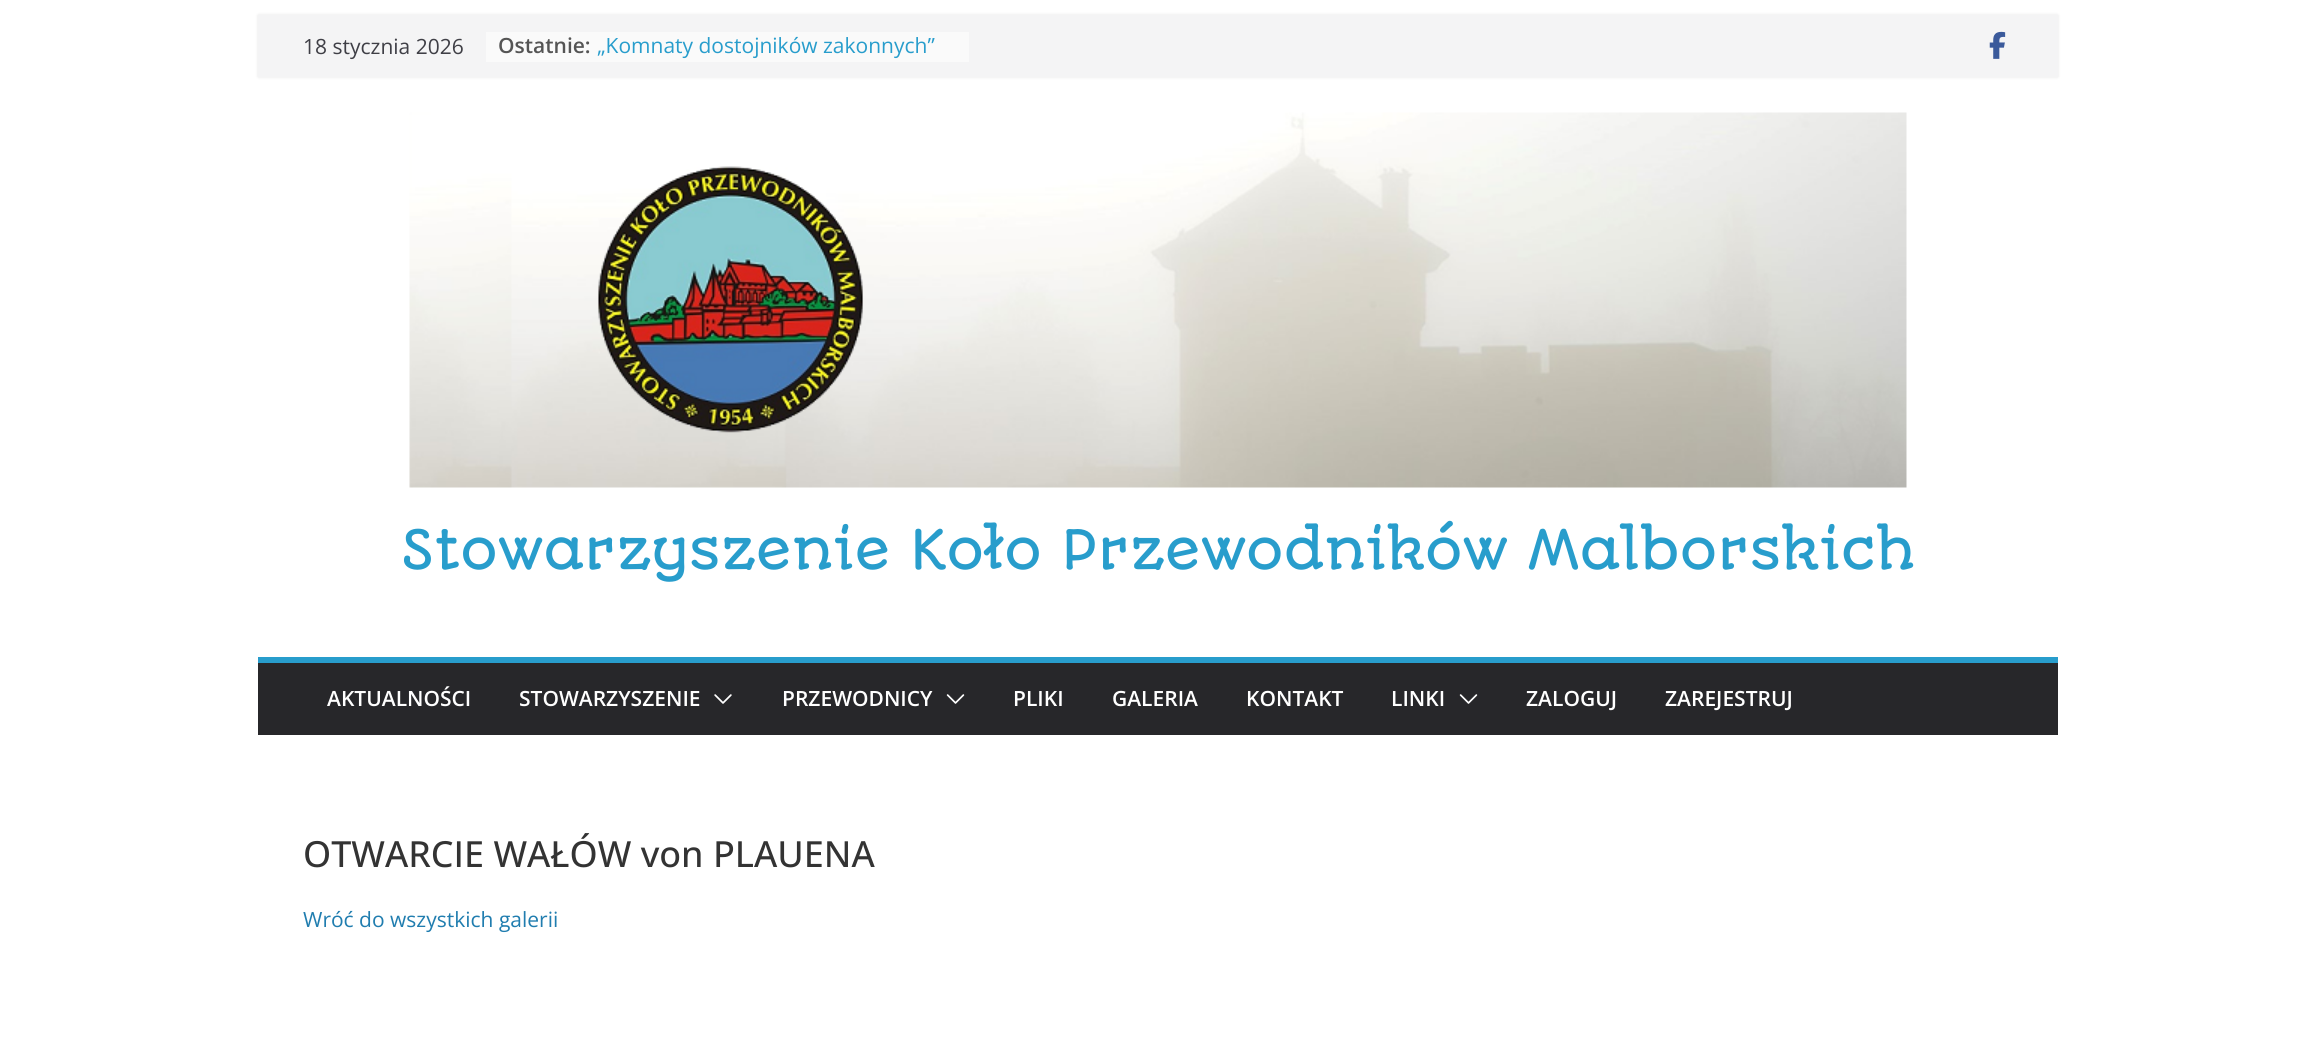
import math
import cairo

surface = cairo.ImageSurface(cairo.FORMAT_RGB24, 2316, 1060)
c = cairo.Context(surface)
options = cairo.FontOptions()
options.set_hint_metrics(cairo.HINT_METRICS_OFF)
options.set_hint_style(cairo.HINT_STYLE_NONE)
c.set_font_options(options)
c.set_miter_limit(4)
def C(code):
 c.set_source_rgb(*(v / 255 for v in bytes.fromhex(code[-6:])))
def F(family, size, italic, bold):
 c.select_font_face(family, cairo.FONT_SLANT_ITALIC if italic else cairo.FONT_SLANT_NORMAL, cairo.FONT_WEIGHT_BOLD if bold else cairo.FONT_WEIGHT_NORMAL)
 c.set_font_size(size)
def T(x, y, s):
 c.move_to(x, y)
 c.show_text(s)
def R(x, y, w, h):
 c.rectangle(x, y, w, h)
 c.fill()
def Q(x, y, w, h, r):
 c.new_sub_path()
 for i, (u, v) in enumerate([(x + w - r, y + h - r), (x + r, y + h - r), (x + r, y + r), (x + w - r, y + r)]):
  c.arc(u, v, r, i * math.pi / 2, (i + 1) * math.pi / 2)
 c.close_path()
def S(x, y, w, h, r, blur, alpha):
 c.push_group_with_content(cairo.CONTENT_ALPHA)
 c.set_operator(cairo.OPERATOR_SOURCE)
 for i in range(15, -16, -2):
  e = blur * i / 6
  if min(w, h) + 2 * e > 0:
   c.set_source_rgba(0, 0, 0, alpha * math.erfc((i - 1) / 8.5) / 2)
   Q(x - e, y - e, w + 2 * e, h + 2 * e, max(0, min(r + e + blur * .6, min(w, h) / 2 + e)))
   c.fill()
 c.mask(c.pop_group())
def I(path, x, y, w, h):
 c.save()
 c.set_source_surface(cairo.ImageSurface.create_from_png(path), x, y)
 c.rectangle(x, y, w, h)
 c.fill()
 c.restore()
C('ffffff')
c.paint()
C('000000')
S(258,15,1800,62,0,1.5,.1)
C('f4f4f5')
R(258,15,1800,62)
F('Open Sans',21,0,0)
C('3f3f46')
T(303,54,'18 stycznia 2026')
C('fafafa')
R(486,32,483,30)
F('Open Sans SemiBold',21,0,0)
C('555555')
T(498,53,'Ostatnie:')
F('Open Sans',21,0,0)
C('289dcc')
T(597,53,'„Komnaty dostojników zakonnych”')
I('1.png',1989,31,17,28)
I('2.png',409,112,1498,376)
F('Autour One',52.5,0,0)
T(400,569,'Stowarzyszenie Koło Przewodników Malborskich')
C('27272a')
R(258,663,1800,72)
C('289dcc')
R(258,657,1800,6)
F('Open Sans SemiBold',21,0,0)
C('ffffff')
T(327,706,'AKTUALNOŚCI')
T(519,706,'STOWARZYSZENIE')
I('3.png',714,694,18,10)
T(782,706,'PRZEWODNICY')
I('4.png',946,694,19,10)
T(1013,706,'PLIKI')
T(1112,706,'GALERIA')
T(1246,706,'KONTAKT')
T(1391,706,'LINKI')
I('4.png',1459,694,19,10)
T(1526,706,'ZALOGUJ')
T(1665,706,'ZAREJESTRUJ')
F('Open Sans Medium',36,0,0)
C('333333')
T(303,867,'OTWARCIE WAŁÓW von PLAUENA')
F('Open Sans',21,0,0)
C('207daf')
T(303,927,'Wróć do wszystkich galerii')
surface.write_to_png('o.png')
